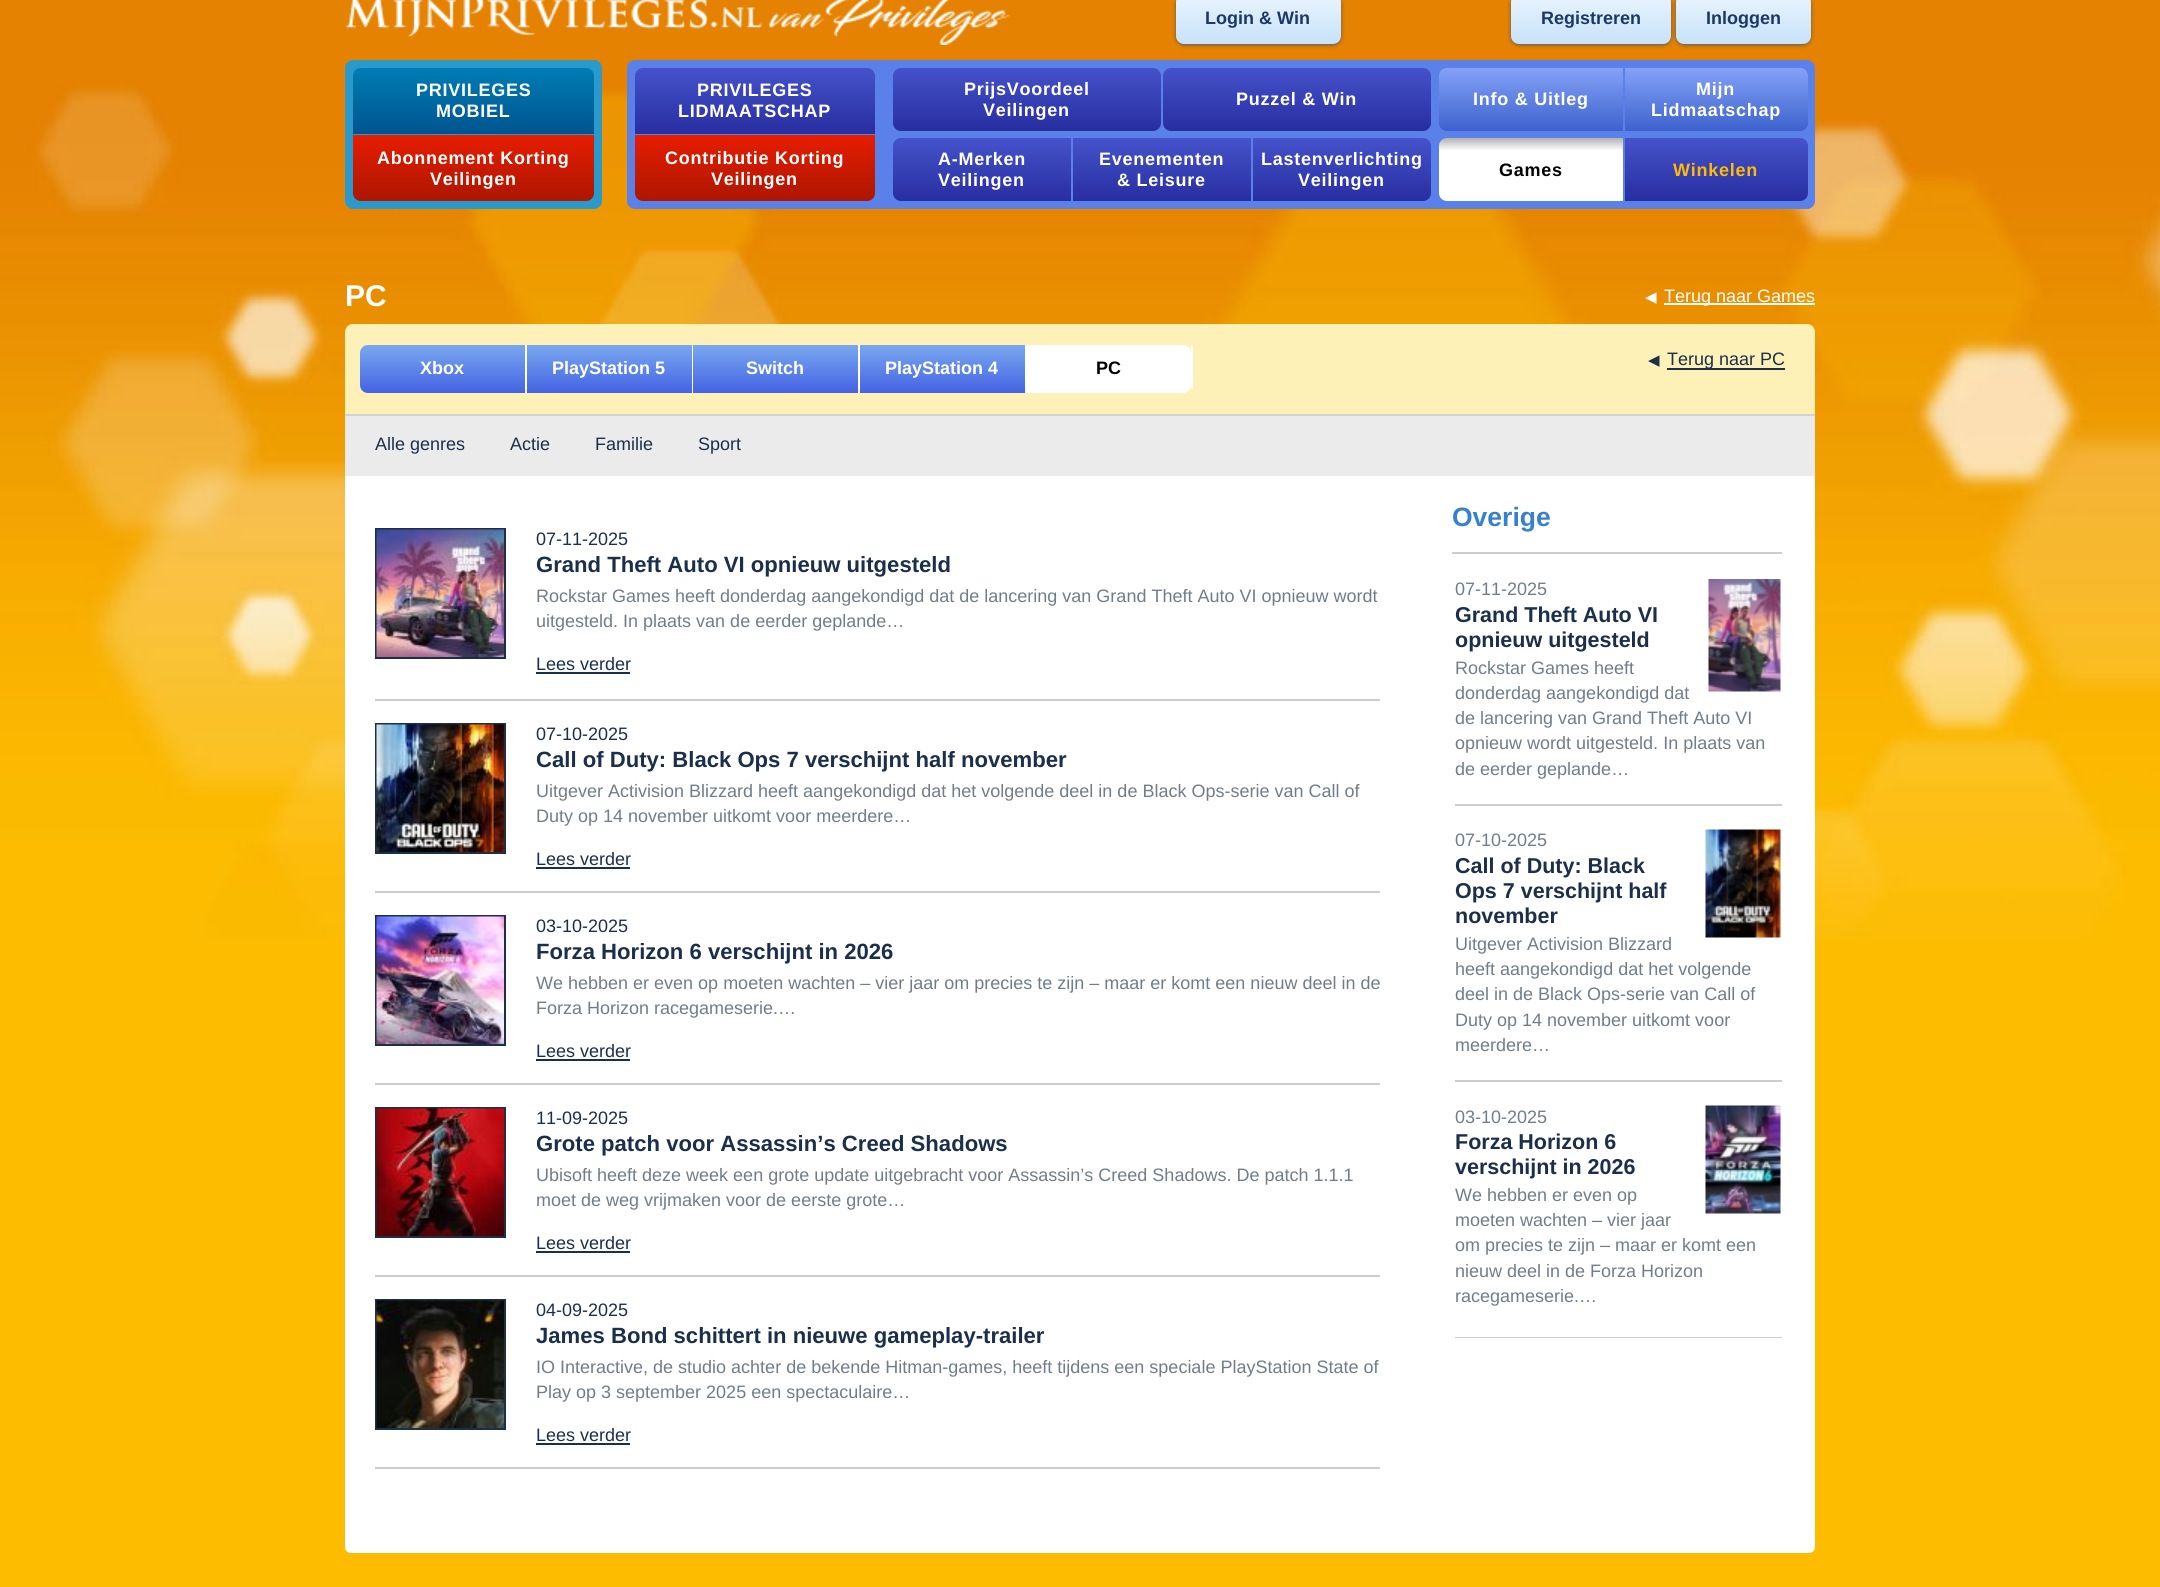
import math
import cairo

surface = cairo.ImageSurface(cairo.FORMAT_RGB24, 2160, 1587)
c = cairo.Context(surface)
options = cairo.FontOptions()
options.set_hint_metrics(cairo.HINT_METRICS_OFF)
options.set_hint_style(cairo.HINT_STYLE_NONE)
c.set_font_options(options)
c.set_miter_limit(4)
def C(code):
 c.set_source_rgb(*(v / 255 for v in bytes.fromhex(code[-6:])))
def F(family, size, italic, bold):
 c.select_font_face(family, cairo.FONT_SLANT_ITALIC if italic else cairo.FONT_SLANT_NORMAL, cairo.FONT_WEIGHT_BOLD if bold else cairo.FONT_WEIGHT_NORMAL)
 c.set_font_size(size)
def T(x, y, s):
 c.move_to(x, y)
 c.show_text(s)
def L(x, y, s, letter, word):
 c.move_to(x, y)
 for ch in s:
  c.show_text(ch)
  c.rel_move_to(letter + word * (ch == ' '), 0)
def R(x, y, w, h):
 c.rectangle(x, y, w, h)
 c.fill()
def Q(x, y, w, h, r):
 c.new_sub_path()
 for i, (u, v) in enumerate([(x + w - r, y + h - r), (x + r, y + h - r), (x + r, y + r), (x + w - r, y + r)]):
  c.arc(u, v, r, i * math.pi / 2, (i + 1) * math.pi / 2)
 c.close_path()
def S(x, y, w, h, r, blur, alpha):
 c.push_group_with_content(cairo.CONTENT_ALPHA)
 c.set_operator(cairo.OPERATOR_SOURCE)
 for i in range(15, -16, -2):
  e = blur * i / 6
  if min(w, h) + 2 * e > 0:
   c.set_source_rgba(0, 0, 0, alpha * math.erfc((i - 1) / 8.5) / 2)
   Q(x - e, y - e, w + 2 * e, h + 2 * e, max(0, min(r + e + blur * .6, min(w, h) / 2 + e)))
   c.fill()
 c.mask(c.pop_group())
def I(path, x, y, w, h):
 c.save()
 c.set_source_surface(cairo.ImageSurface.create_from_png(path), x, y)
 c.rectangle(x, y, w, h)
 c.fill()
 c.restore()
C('fdbc00')
c.paint()
I('1.png',0,0,2160,939)
I('2.png',345,0,665,45)
C('565656')
S(1176,-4,165,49,8,2,1)
gradient = cairo.LinearGradient(1259,-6,1259,44)
gradient.add_color_stop_rgba(0,0.914,0.957,0.992,1)
gradient.add_color_stop_rgba(1,0.78,0.886,0.98,1)
c.set_source(gradient)
Q(1176,-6,165,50,8)
c.fill()
F('Liberation Sans',18,0,1)
C('1b3866')
T(1205,24,'Login & Win')
C('565656')
S(1511,-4,160,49,8,2,1)
gradient = cairo.LinearGradient(1591,-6,1591,44)
gradient.add_color_stop_rgba(0,0.914,0.957,0.992,1)
gradient.add_color_stop_rgba(1,0.78,0.886,0.98,1)
c.set_source(gradient)
Q(1511,-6,160,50,8)
c.fill()
C('1b3866')
T(1541,24,'Registreren')
C('565656')
S(1676,-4,135,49,8,2,1)
gradient = cairo.LinearGradient(1743,-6,1743,44)
gradient.add_color_stop_rgba(0,0.914,0.957,0.992,1)
gradient.add_color_stop_rgba(1,0.78,0.886,0.98,1)
c.set_source(gradient)
Q(1676,-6,135,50,8)
c.fill()
C('1b3866')
T(1706,24,'Inloggen')
C('2a9acd')
Q(345,60,257,149,8)
c.fill()
gradient = cairo.LinearGradient(473,67,473,134)
gradient.add_color_stop_rgba(0,0,0.494,0.706,1)
gradient.add_color_stop_rgba(1,0,0.329,0.561,1)
c.set_source(gradient)
c.new_path()
c.move_to(361,68)
c.line_to(586,68)
c.curve_to(590.5,68,594,71.5,594,76)
c.line_to(594,134)
c.line_to(353,134)
c.line_to(353,76)
c.curve_to(353,71.5,356.5,68,361,68)
c.close_path()
c.fill()
C('ffffff')
L(416,96,'PRIVILEGES',.75,0)
L(436,117,'MOBIEL',.75,0)
gradient = cairo.LinearGradient(473,135,473,201)
gradient.add_color_stop_rgba(0,0.902,0.114,0,1)
gradient.add_color_stop_rgba(1,0.678,0.086,0,1)
c.set_source(gradient)
c.new_path()
c.move_to(353,135)
c.line_to(594,135)
c.line_to(594,193)
c.curve_to(594,197.5,590.5,201,586,201)
c.line_to(361,201)
c.curve_to(356.5,201,353,197.5,353,193)
c.close_path()
c.fill()
C('ffffff')
L(377,164,'Abonnement Korting',.75,0)
L(430,185,'Veilingen',.75,0)
C('5a81ea')
Q(627,60,1188,149,8)
c.fill()
gradient = cairo.LinearGradient(755,67,755,134)
gradient.add_color_stop_rgba(0,0.275,0.325,0.796,1)
gradient.add_color_stop_rgba(1,0.153,0.18,0.627,1)
c.set_source(gradient)
c.new_path()
c.move_to(643,68)
c.line_to(867,68)
c.curve_to(871.5,68,875,71.5,875,76)
c.line_to(875,134)
c.line_to(635,134)
c.line_to(635,76)
c.curve_to(635,71.5,638.5,68,643,68)
c.close_path()
c.fill()
C('ffffff')
L(697,96,'PRIVILEGES',.75,0)
L(678,117,'LIDMAATSCHAP',.75,0)
gradient = cairo.LinearGradient(755,135,755,201)
gradient.add_color_stop_rgba(0,0.902,0.114,0,1)
gradient.add_color_stop_rgba(1,0.678,0.086,0,1)
c.set_source(gradient)
c.new_path()
c.move_to(635,135)
c.line_to(875,135)
c.line_to(875,193)
c.curve_to(875,197.5,871.5,201,867,201)
c.line_to(643,201)
c.curve_to(638.5,201,635,197.5,635,193)
c.close_path()
c.fill()
C('ffffff')
L(665,164,'Contributie Korting',.75,0)
L(711,185,'Veilingen',.75,0)
gradient = cairo.LinearGradient(1027,67,1027,131)
gradient.add_color_stop_rgba(0,0.275,0.325,0.796,1)
gradient.add_color_stop_rgba(1,0.153,0.18,0.627,1)
c.set_source(gradient)
Q(893,68,268,63,8)
c.fill()
C('ffffff')
L(964,95,'PrijsVoordeel',.75,0)
L(983,116,'Veilingen',.75,0)
gradient = cairo.LinearGradient(1297,67,1297,131)
gradient.add_color_stop_rgba(0,0.275,0.325,0.796,1)
gradient.add_color_stop_rgba(1,0.153,0.18,0.627,1)
c.set_source(gradient)
Q(1163,68,268,63,8)
c.fill()
C('ffffff')
L(1236,105,'Puzzel & Win',.75,0)
gradient = cairo.LinearGradient(982,138,982,201)
gradient.add_color_stop_rgba(0,0.275,0.325,0.796,1)
gradient.add_color_stop_rgba(1,0.153,0.18,0.627,1)
c.set_source(gradient)
c.new_path()
c.move_to(901,138)
c.line_to(1071,138)
c.line_to(1071,201)
c.line_to(901,201)
c.curve_to(896.5,201,893,197.5,893,193)
c.line_to(893,146)
c.curve_to(893,141.5,896.5,138,901,138)
c.close_path()
c.fill()
C('ffffff')
L(938,165,'A-Merken',.75,0)
L(938,186,'Veilingen',.75,0)
gradient = cairo.LinearGradient(1162,138,1162,201)
gradient.add_color_stop_rgba(0,0.275,0.325,0.796,1)
gradient.add_color_stop_rgba(1,0.153,0.18,0.627,1)
c.set_source(gradient)
R(1073,138,178,63)
C('ffffff')
L(1099,165,'Evenementen',.75,0)
L(1117,186,'& Leisure',.75,0)
gradient = cairo.LinearGradient(1342,138,1342,201)
gradient.add_color_stop_rgba(0,0.275,0.325,0.796,1)
gradient.add_color_stop_rgba(1,0.153,0.18,0.627,1)
c.set_source(gradient)
c.new_path()
c.move_to(1253,138)
c.line_to(1423,138)
c.curve_to(1427.5,138,1431,141.5,1431,146)
c.line_to(1431,193)
c.curve_to(1431,197.5,1427.5,201,1423,201)
c.line_to(1253,201)
c.close_path()
c.fill()
C('ffffff')
L(1261,165,'Lastenverlichting',.75,0)
L(1298,186,'Veilingen',.75,0)
gradient = cairo.LinearGradient(1531,67,1531,131)
gradient.add_color_stop_rgba(0,0.522,0.639,0.969,1)
gradient.add_color_stop_rgba(1,0.239,0.384,0.804,1)
c.set_source(gradient)
c.new_path()
c.move_to(1447,68)
c.line_to(1623,68)
c.line_to(1623,131)
c.line_to(1447,131)
c.curve_to(1442.5,131,1439,127.5,1439,123)
c.line_to(1439,76)
c.curve_to(1439,71.5,1442.5,68,1447,68)
c.close_path()
c.fill()
C('ffffff')
L(1473,105,'Info & Uitleg',.75,0)
gradient = cairo.LinearGradient(1716,67,1716,131)
gradient.add_color_stop_rgba(0,0.522,0.639,0.969,1)
gradient.add_color_stop_rgba(1,0.239,0.384,0.804,1)
c.set_source(gradient)
c.new_path()
c.move_to(1625,68)
c.line_to(1800,68)
c.curve_to(1804.5,68,1808,71.5,1808,76)
c.line_to(1808,123)
c.curve_to(1808,127.5,1804.5,131,1800,131)
c.line_to(1625,131)
c.close_path()
c.fill()
C('ffffff')
L(1696,95,'Mijn',.75,0)
L(1651,116,'Lidmaatschap',.75,0)
gradient = cairo.LinearGradient(1531,138,1531,201)
gradient.add_color_stop_rgba(0,0.698,0.698,0.698,1)
gradient.add_color_stop_rgba(.2,1,1,1,1)
c.set_source(gradient)
c.new_path()
c.move_to(1447,138)
c.line_to(1623,138)
c.line_to(1623,201)
c.line_to(1447,201)
c.curve_to(1442.5,201,1439,197.5,1439,193)
c.line_to(1439,146)
c.curve_to(1439,141.5,1442.5,138,1447,138)
c.close_path()
c.fill()
C('000000')
L(1499,176,'Games',.75,0)
gradient = cairo.LinearGradient(1716,138,1716,201)
gradient.add_color_stop_rgba(0,0.275,0.325,0.796,1)
gradient.add_color_stop_rgba(1,0.153,0.18,0.627,1)
c.set_source(gradient)
c.new_path()
c.move_to(1625,138)
c.line_to(1800,138)
c.curve_to(1804.5,138,1808,141.5,1808,146)
c.line_to(1808,193)
c.curve_to(1808,197.5,1804.5,201,1800,201)
c.line_to(1625,201)
c.close_path()
c.fill()
C('ffbb00')
L(1673,176,'Winkelen',.75,0)
C('ffffff')
Q(345,344,1470,1209,6)
c.fill()
F('Liberation Sans',30,0,1)
T(345,306,'PC')
F('DejaVu Sans',15,0,0)
T(1645,302,'◀')
R(1664,303,151,2)
F('Liberation Sans',18,0,0)
T(1664,302,'Terug naar Games')
C('fef1b7')
c.new_path()
c.move_to(353,324)
c.line_to(1807,324)
c.curve_to(1811.5,324,1815,327.5,1815,332)
c.line_to(1815,414)
c.line_to(345,414)
c.line_to(345,332)
c.curve_to(345,327.5,348.5,324,353,324)
c.close_path()
c.fill()
C('ffffff')
R(525,345,2,44)
gradient = cairo.LinearGradient(443,345,443,393)
gradient.add_color_stop_rgba(0,0.475,0.659,0.937,1)
gradient.add_color_stop_rgba(1,0.267,0.388,0.89,1)
c.set_source(gradient)
c.new_path()
c.move_to(368,345)
c.line_to(525,345)
c.line_to(525,393)
c.line_to(368,393)
c.curve_to(363.5,393,360,389.5,360,385)
c.line_to(360,353)
c.curve_to(360,348.5,363.5,345,368,345)
c.close_path()
c.fill()
F('Liberation Sans',18,0,1)
C('ffffff')
T(420,374,'Xbox')
R(692,345,1,44)
gradient = cairo.LinearGradient(609,345,609,393)
gradient.add_color_stop_rgba(0,0.475,0.659,0.937,1)
gradient.add_color_stop_rgba(1,0.267,0.388,0.89,1)
c.set_source(gradient)
R(527,345,165,48)
C('ffffff')
T(552,374,'PlayStation 5')
R(858,345,2,44)
gradient = cairo.LinearGradient(776,345,776,393)
gradient.add_color_stop_rgba(0,0.475,0.659,0.937,1)
gradient.add_color_stop_rgba(1,0.267,0.388,0.89,1)
c.set_source(gradient)
R(693,345,165,48)
C('ffffff')
T(746,374,'Switch')
R(1025,345,1,44)
gradient = cairo.LinearGradient(942,345,942,393)
gradient.add_color_stop_rgba(0,0.475,0.659,0.937,1)
gradient.add_color_stop_rgba(1,0.267,0.388,0.89,1)
c.set_source(gradient)
R(860,345,165,48)
C('ffffff')
T(885,374,'PlayStation 4')
R(1191,345,2,44)
c.new_path()
c.move_to(1026,345)
c.line_to(1183,345)
c.curve_to(1187.5,345,1191,348.5,1191,353)
c.line_to(1191,385)
c.curve_to(1191,389.5,1187.5,393,1183,393)
c.line_to(1026,393)
c.close_path()
c.fill()
C('000000')
T(1096,374,'PC')
F('DejaVu Sans',15,0,0)
C('1b2f4b')
T(1648,365,'◀')
R(1667,368,118,2)
F('Liberation Sans',18,0,0)
T(1667,365,'Terug naar PC')
C('ebebeb')
R(345,416,1470,60)
C('d3d3d3')
R(345,414,1470,2)
C('1b2f4b')
T(375,450,'Alle genres')
T(510,450,'Actie')
T(595,450,'Familie')
T(698,450,'Sport')
C('cccdce')
R(375,699,1005,2)
c.rectangle(376,529,129,129)
C('1b2f4b')
c.stroke()
I('3.png',376,529,128,128)
T(536,545,'07-11-2025')
F('Liberation Sans',22.1,0,1)
T(536,572,'Grand Theft Auto VI opnieuw uitgesteld')
F('Liberation Sans',18,0,0)
C('707d89')
T(536,602,'Rockstar Games heeft donderdag aangekondigd dat de lancering van Grand Theft Auto VI opnieuw wordt')
T(536,627,'uitgesteld. In plaats van de eerder geplande…')
C('1b2f4b')
T(536,670,'Lees verder')
R(536,672,94,2)
C('cccdce')
R(375,891,1005,2)
c.rectangle(376,724,129,129)
C('1b2f4b')
c.stroke()
I('4.png',376,724,128,128)
T(536,740,'07-10-2025')
F('Liberation Sans',22.1,0,1)
T(536,767,'Call of Duty: Black Ops 7 verschijnt half november')
F('Liberation Sans',18,0,0)
C('707d89')
T(536,797,'Uitgever Activision Blizzard heeft aangekondigd dat het volgende deel in de Black Ops-serie van Call of')
T(536,822,'Duty op 14 november uitkomt voor meerdere…')
C('1b2f4b')
T(536,865,'Lees verder')
R(536,867,94,2)
C('cccdce')
R(375,1083,1005,2)
c.rectangle(376,916,129,129)
C('1b2f4b')
c.stroke()
I('5.png',376,916,128,128)
T(536,932,'03-10-2025')
F('Liberation Sans',22.1,0,1)
T(536,959,'Forza Horizon 6 verschijnt in 2026')
F('Liberation Sans',18,0,0)
C('707d89')
T(536,989,'We hebben er even op moeten wachten – vier jaar om precies te zijn – maar er komt een nieuw deel in de')
T(536,1014,'Forza Horizon racegameserie.…')
C('1b2f4b')
T(536,1057,'Lees verder')
R(536,1059,94,2)
C('cccdce')
R(375,1275,1005,2)
c.rectangle(376,1108,129,129)
C('1b2f4b')
c.stroke()
I('6.png',376,1108,128,128)
T(536,1124,'11-09-2025')
F('Liberation Sans',22.1,0,1)
T(536,1151,'Grote patch voor Assassin’s Creed Shadows')
F('Liberation Sans',18,0,0)
C('707d89')
T(536,1181,'Ubisoft heeft deze week een grote update uitgebracht voor Assassin’s Creed Shadows. De patch 1.1.1')
T(536,1206,'moet de weg vrijmaken voor de eerste grote…')
C('1b2f4b')
T(536,1249,'Lees verder')
R(536,1251,94,2)
C('cccdce')
R(375,1467,1005,2)
c.rectangle(376,1300,129,129)
C('1b2f4b')
c.stroke()
I('7.png',376,1300,128,128)
T(536,1316,'04-09-2025')
F('Liberation Sans',22.1,0,1)
T(536,1343,'James Bond schittert in nieuwe gameplay-trailer')
F('Liberation Sans',18,0,0)
C('707d89')
T(536,1373,'IO Interactive, de studio achter de bekende Hitman-games, heeft tijdens een speciale PlayStation State of')
T(536,1398,'Play op 3 september 2025 een spectaculaire…')
C('1b2f4b')
T(536,1441,'Lees verder')
R(536,1443,94,2)
C('cccdce')
R(1452,552,330,2)
F('Liberation Sans',26.5,0,1)
C('3581cf')
T(1452,526,'Overige')
C('cccdce')
R(1455,804,327,2)
F('Liberation Sans',18,0,0)
C('707d89')
T(1455,595,'07-11-2025')
I('8.png',1708,579,73,113)
F('Liberation Sans',21.5,0,1)
C('1b2f4b')
T(1455,622,'Grand Theft Auto VI')
T(1455,647,'opnieuw uitgesteld')
F('Liberation Sans',18,0,0)
C('707d89')
T(1455,674,'Rockstar Games heeft')
T(1455,699,'donderdag aangekondigd dat')
T(1455,724,'de lancering van Grand Theft Auto VI')
T(1455,749,'opnieuw wordt uitgesteld. In plaats van')
T(1455,775,'de eerder geplande…')
C('cccdce')
R(1455,1080,327,2)
C('707d89')
T(1455,846,'07-10-2025')
I('9.png',1705,829,76,109)
F('Liberation Sans',21.5,0,1)
C('1b2f4b')
T(1455,873,'Call of Duty: Black')
T(1455,898,'Ops 7 verschijnt half')
T(1455,923,'november')
F('Liberation Sans',18,0,0)
C('707d89')
T(1455,950,'Uitgever Activision Blizzard')
T(1455,975,'heeft aangekondigd dat het volgende')
T(1455,1000,'deel in de Black Ops-serie van Call of')
T(1455,1026,'Duty op 14 november uitkomt voor')
T(1455,1051,'meerdere…')
C('cccdce')
R(1455,1337,327,1)
C('707d89')
T(1455,1123,'03-10-2025')
I('10.png',1705,1105,76,109)
F('Liberation Sans',21.5,0,1)
C('1b2f4b')
T(1455,1149,'Forza Horizon 6')
T(1455,1174,'verschijnt in 2026')
F('Liberation Sans',18,0,0)
C('707d89')
T(1455,1201,'We hebben er even op')
T(1455,1226,'moeten wachten – vier jaar')
T(1455,1251,'om precies te zijn – maar er komt een')
T(1455,1277,'nieuw deel in de Forza Horizon')
T(1455,1302,'racegameserie.…')
surface.write_to_png('o.png')
